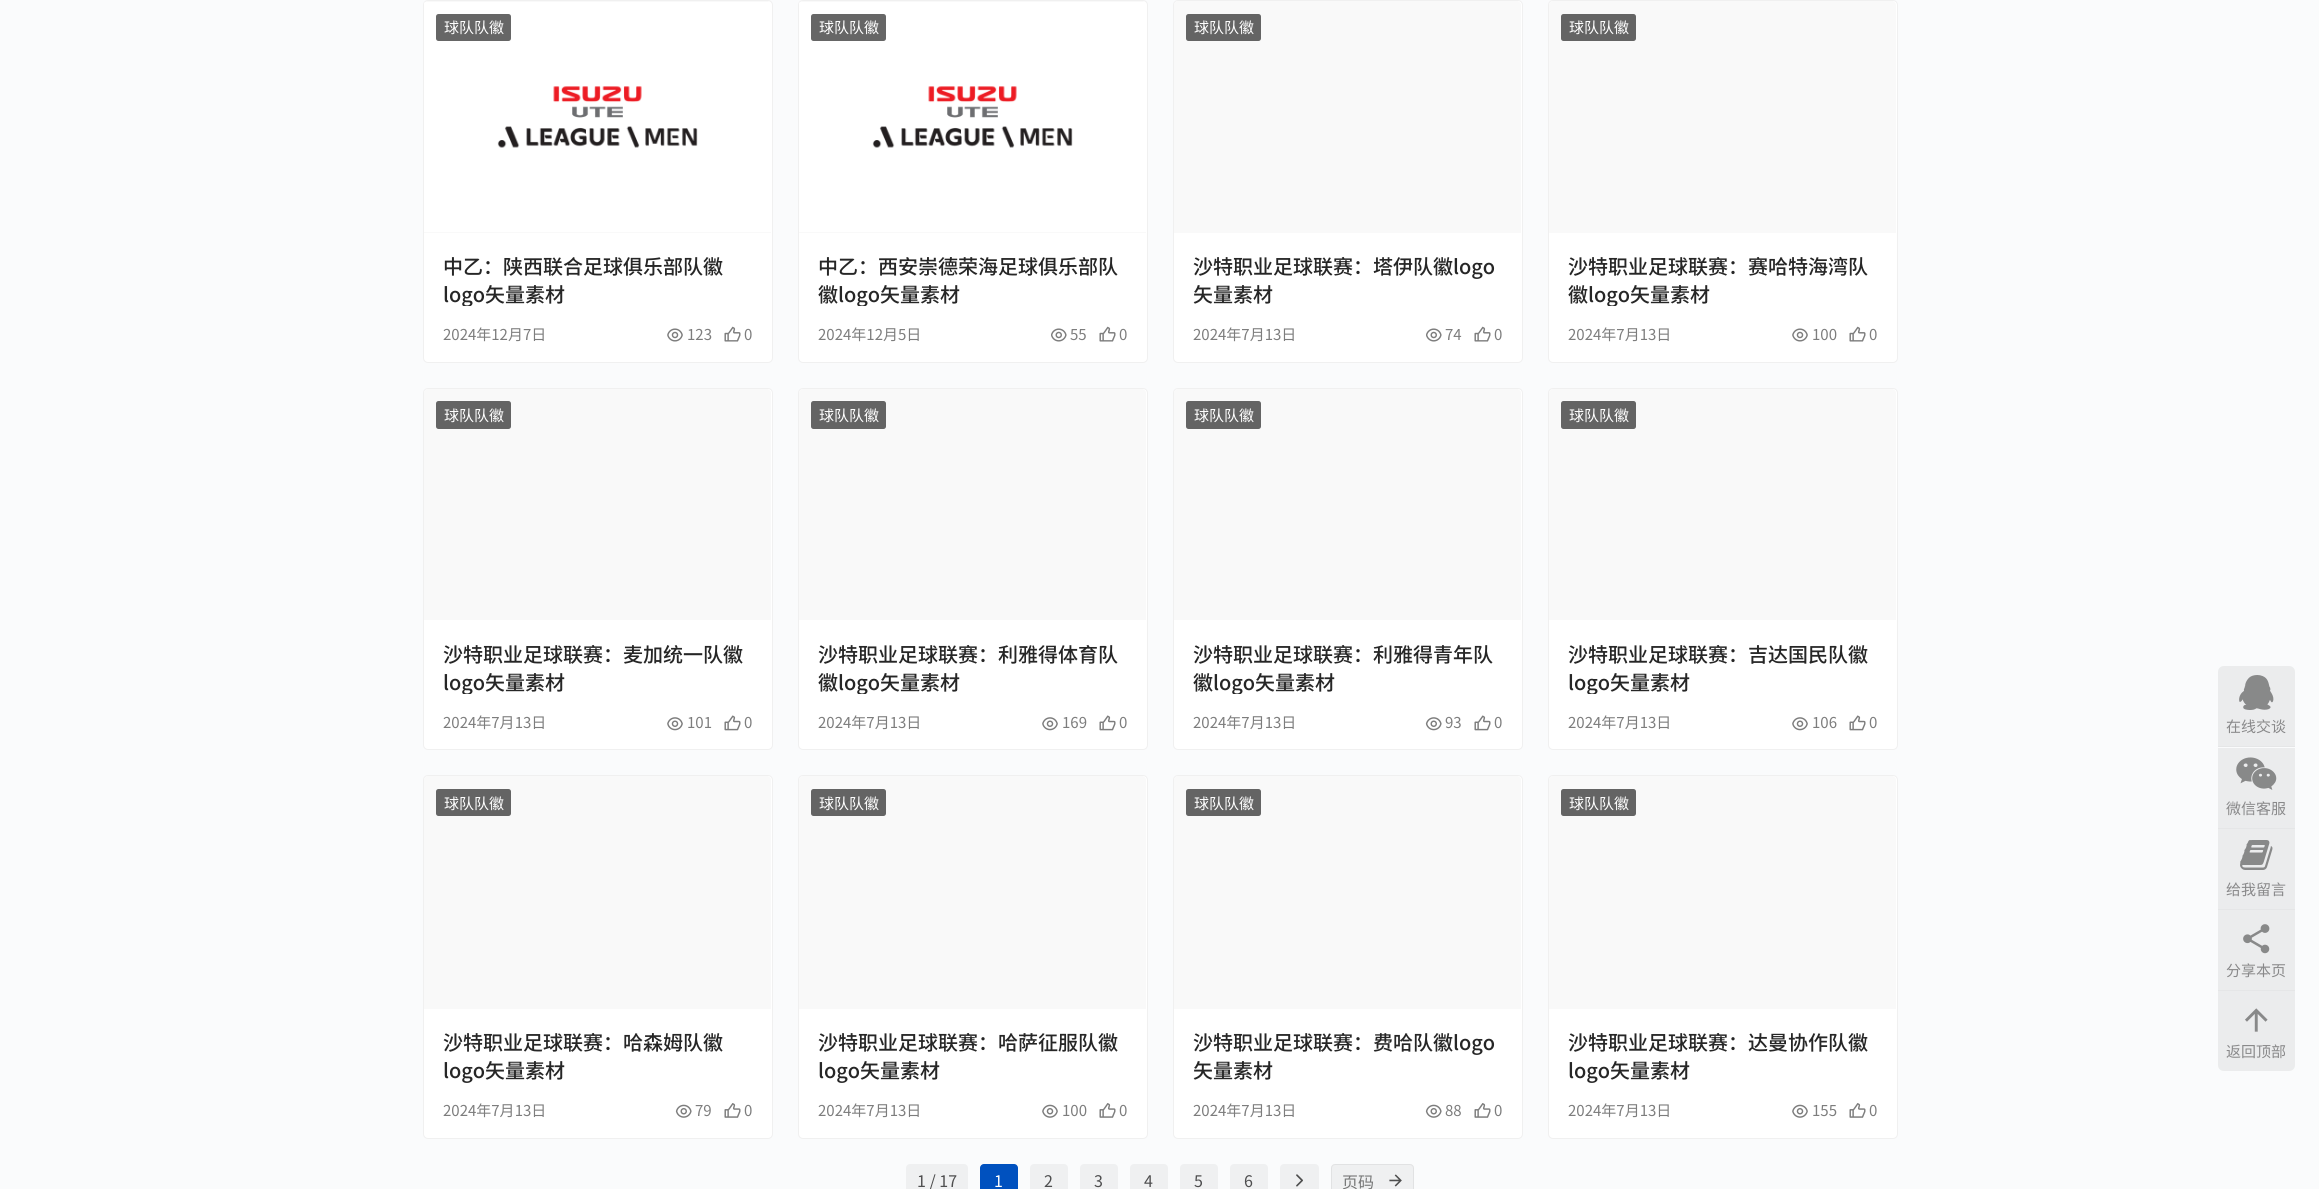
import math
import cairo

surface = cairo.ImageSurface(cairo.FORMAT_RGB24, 2319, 1189)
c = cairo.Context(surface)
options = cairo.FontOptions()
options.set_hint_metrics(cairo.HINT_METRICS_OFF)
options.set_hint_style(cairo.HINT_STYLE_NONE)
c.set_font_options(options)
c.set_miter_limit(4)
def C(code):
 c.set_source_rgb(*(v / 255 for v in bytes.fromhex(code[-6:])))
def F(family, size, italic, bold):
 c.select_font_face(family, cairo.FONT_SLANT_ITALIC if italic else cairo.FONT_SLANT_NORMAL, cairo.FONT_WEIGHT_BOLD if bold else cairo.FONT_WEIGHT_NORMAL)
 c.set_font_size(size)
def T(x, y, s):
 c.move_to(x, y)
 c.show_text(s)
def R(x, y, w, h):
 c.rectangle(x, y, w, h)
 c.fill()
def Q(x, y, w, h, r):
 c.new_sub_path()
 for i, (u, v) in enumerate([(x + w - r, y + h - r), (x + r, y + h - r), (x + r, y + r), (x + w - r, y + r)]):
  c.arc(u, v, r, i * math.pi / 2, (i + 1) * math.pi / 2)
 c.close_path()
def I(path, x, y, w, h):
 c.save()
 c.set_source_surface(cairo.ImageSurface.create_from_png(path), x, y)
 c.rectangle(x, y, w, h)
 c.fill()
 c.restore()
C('fafbfc')
c.paint()
C('ffffff')
Q(423.5,.5,349,362,4.5)
c.fill_preserve()
C('f0f0f0')
c.set_line_width(1)
c.stroke()
C('f9f9f9')
c.new_path()
c.move_to(428,1)
c.line_to(767,1)
c.curve_to(769,1,771,3,771,5)
c.line_to(771,233)
c.line_to(424,233)
c.line_to(424,5)
c.curve_to(424,3,426,1,428,1)
c.close_path()
c.fill()
I('1.png',424,2,347,230)
C('666666')
Q(436,14,75,27,2.5)
c.fill()
F('Noto Sans CJK SC',15,0,0)
C('ffffff')
T(444,33,'球队队徽')
F('Noto Sans CJK SC Medium',20,0,0)
C('262626')
T(443,274,'中乙：陕西联合足球俱乐部队徽')
c.save()
c.rectangle(443,251,310,55)
c.clip()
T(443,302,'logo矢量素材')
c.restore()
F('Noto Sans CJK SC',15,0,0)
C('7d7d7d')
T(443,340,'2024年12月7日')
I('2.png',667,328,16,14)
T(687,340,'123')
I('3.png',724,326,17,16)
T(744,340,'0')
C('ffffff')
Q(798.5,.5,349,362,4.5)
c.fill_preserve()
C('f0f0f0')
c.stroke()
C('f9f9f9')
c.new_path()
c.move_to(803,1)
c.line_to(1142,1)
c.curve_to(1144,1,1146,3,1146,5)
c.line_to(1146,233)
c.line_to(799,233)
c.line_to(799,5)
c.curve_to(799,3,801,1,803,1)
c.close_path()
c.fill()
I('1.png',799,2,347,230)
C('666666')
Q(811,14,75,27,2.5)
c.fill()
C('ffffff')
T(819,33,'球队队徽')
F('Noto Sans CJK SC Medium',20,0,0)
C('262626')
T(818,274,'中乙：西安崇德荣海足球俱乐部队')
c.save()
c.rectangle(818,251,310,55)
c.clip()
T(818,302,'徽logo矢量素材')
c.restore()
F('Noto Sans CJK SC',15,0,0)
C('7d7d7d')
T(818,340,'2024年12月5日')
I('4.png',1051,328,16,14)
T(1070,340,'55')
I('3.png',1099,326,17,16)
T(1119,340,'0')
C('ffffff')
Q(1173.5,.5,349,362,4.5)
c.fill_preserve()
C('f0f0f0')
c.stroke()
C('f9f9f9')
c.new_path()
c.move_to(1178,1)
c.line_to(1517,1)
c.curve_to(1519,1,1521,3,1521,5)
c.line_to(1521,233)
c.line_to(1174,233)
c.line_to(1174,5)
c.curve_to(1174,3,1176,1,1178,1)
c.close_path()
c.fill()
C('646464')
Q(1186,14,75,27,2.5)
c.fill()
C('ffffff')
T(1194,33,'球队队徽')
F('Noto Sans CJK SC Medium',20,0,0)
C('262626')
T(1193,274,'沙特职业足球联赛：塔伊队徽logo')
T(1193,302,'矢量素材')
F('Noto Sans CJK SC',15,0,0)
C('7d7d7d')
T(1193,340,'2024年7月13日')
I('4.png',1426,328,16,14)
T(1445,340,'74')
I('3.png',1474,326,17,16)
T(1494,340,'0')
C('ffffff')
Q(1548.5,.5,349,362,4.5)
c.fill_preserve()
C('f0f0f0')
c.stroke()
C('f9f9f9')
c.new_path()
c.move_to(1553,1)
c.line_to(1892,1)
c.curve_to(1894,1,1896,3,1896,5)
c.line_to(1896,233)
c.line_to(1549,233)
c.line_to(1549,5)
c.curve_to(1549,3,1551,1,1553,1)
c.close_path()
c.fill()
C('646464')
Q(1561,14,75,27,2.5)
c.fill()
C('ffffff')
T(1569,33,'球队队徽')
F('Noto Sans CJK SC Medium',20,0,0)
C('262626')
T(1568,274,'沙特职业足球联赛：赛哈特海湾队')
c.save()
c.rectangle(1568,251,310,55)
c.clip()
T(1568,302,'徽logo矢量素材')
c.restore()
F('Noto Sans CJK SC',15,0,0)
C('7d7d7d')
T(1568,340,'2024年7月13日')
I('2.png',1792,328,16,14)
T(1812,340,'100')
I('3.png',1849,326,17,16)
T(1869,340,'0')
C('ffffff')
Q(423.5,388.5,349,361,4.5)
c.fill_preserve()
C('f0f0f0')
c.stroke()
C('f9f9f9')
c.new_path()
c.move_to(428,389)
c.line_to(767,389)
c.curve_to(769,389,771,391,771,393)
c.line_to(771,620)
c.line_to(424,620)
c.line_to(424,393)
c.curve_to(424,391,426,389,428,389)
c.close_path()
c.fill()
C('646464')
Q(436,401,75,28,2.5)
c.fill()
C('ffffff')
T(444,421,'球队队徽')
F('Noto Sans CJK SC Medium',20,0,0)
C('262626')
T(443,662,'沙特职业足球联赛：麦加统一队徽')
c.save()
c.rectangle(443,639,310,55)
c.clip()
T(443,690,'logo矢量素材')
c.restore()
F('Noto Sans CJK SC',15,0,0)
C('7d7d7d')
T(443,728,'2024年7月13日')
I('5.png',667,717,16,14)
T(687,728,'101')
I('6.png',724,715,17,16)
T(744,728,'0')
C('ffffff')
Q(798.5,388.5,349,361,4.5)
c.fill_preserve()
C('f0f0f0')
c.stroke()
C('f9f9f9')
c.new_path()
c.move_to(803,389)
c.line_to(1142,389)
c.curve_to(1144,389,1146,391,1146,393)
c.line_to(1146,620)
c.line_to(799,620)
c.line_to(799,393)
c.curve_to(799,391,801,389,803,389)
c.close_path()
c.fill()
C('646464')
Q(811,401,75,28,2.5)
c.fill()
C('ffffff')
T(819,421,'球队队徽')
F('Noto Sans CJK SC Medium',20,0,0)
C('262626')
T(818,662,'沙特职业足球联赛：利雅得体育队')
c.save()
c.rectangle(818,639,310,55)
c.clip()
T(818,690,'徽logo矢量素材')
c.restore()
F('Noto Sans CJK SC',15,0,0)
C('7d7d7d')
T(818,728,'2024年7月13日')
I('5.png',1042,717,16,14)
T(1062,728,'169')
I('6.png',1099,715,17,16)
T(1119,728,'0')
C('ffffff')
Q(1173.5,388.5,349,361,4.5)
c.fill_preserve()
C('f0f0f0')
c.stroke()
C('f9f9f9')
c.new_path()
c.move_to(1178,389)
c.line_to(1517,389)
c.curve_to(1519,389,1521,391,1521,393)
c.line_to(1521,620)
c.line_to(1174,620)
c.line_to(1174,393)
c.curve_to(1174,391,1176,389,1178,389)
c.close_path()
c.fill()
C('646464')
Q(1186,401,75,28,2.5)
c.fill()
C('ffffff')
T(1194,421,'球队队徽')
F('Noto Sans CJK SC Medium',20,0,0)
C('262626')
T(1193,662,'沙特职业足球联赛：利雅得青年队')
c.save()
c.rectangle(1193,639,310,55)
c.clip()
T(1193,690,'徽logo矢量素材')
c.restore()
F('Noto Sans CJK SC',15,0,0)
C('7d7d7d')
T(1193,728,'2024年7月13日')
I('7.png',1425,717,17,14)
T(1445,728,'93')
I('6.png',1474,715,17,16)
T(1494,728,'0')
C('ffffff')
Q(1548.5,388.5,349,361,4.5)
c.fill_preserve()
C('f0f0f0')
c.stroke()
C('f9f9f9')
c.new_path()
c.move_to(1553,389)
c.line_to(1892,389)
c.curve_to(1894,389,1896,391,1896,393)
c.line_to(1896,620)
c.line_to(1549,620)
c.line_to(1549,393)
c.curve_to(1549,391,1551,389,1553,389)
c.close_path()
c.fill()
C('646464')
Q(1561,401,75,28,2.5)
c.fill()
C('ffffff')
T(1569,421,'球队队徽')
F('Noto Sans CJK SC Medium',20,0,0)
C('262626')
T(1568,662,'沙特职业足球联赛：吉达国民队徽')
c.save()
c.rectangle(1568,639,310,55)
c.clip()
T(1568,690,'logo矢量素材')
c.restore()
F('Noto Sans CJK SC',15,0,0)
C('7d7d7d')
T(1568,728,'2024年7月13日')
I('5.png',1792,717,16,14)
T(1812,728,'106')
I('6.png',1849,715,17,16)
T(1869,728,'0')
C('ffffff')
Q(423.5,775.5,349,363,4.5)
c.fill_preserve()
C('f0f0f0')
c.stroke()
C('f9f9f9')
c.new_path()
c.move_to(428,776)
c.line_to(767,776)
c.curve_to(769,776,771,778,771,780)
c.line_to(771,1009)
c.line_to(424,1009)
c.line_to(424,780)
c.curve_to(424,778,426,776,428,776)
c.close_path()
c.fill()
C('646464')
Q(436,789,75,27,2.5)
c.fill()
C('ffffff')
T(444,809,'球队队徽')
F('Noto Sans CJK SC Medium',20,0,0)
C('262626')
T(443,1050,'沙特职业足球联赛：哈森姆队徽')
T(443,1078,'logo矢量素材')
F('Noto Sans CJK SC',15,0,0)
C('7d7d7d')
T(443,1116,'2024年7月13日')
I('8.png',675,1104,17,14)
T(695,1116,'79')
I('9.png',724,1103,17,15)
T(744,1116,'0')
C('ffffff')
Q(798.5,775.5,349,363,4.5)
c.fill_preserve()
C('f0f0f0')
c.stroke()
C('f9f9f9')
c.new_path()
c.move_to(803,776)
c.line_to(1142,776)
c.curve_to(1144,776,1146,778,1146,780)
c.line_to(1146,1009)
c.line_to(799,1009)
c.line_to(799,780)
c.curve_to(799,778,801,776,803,776)
c.close_path()
c.fill()
C('646464')
Q(811,789,75,27,2.5)
c.fill()
C('ffffff')
T(819,809,'球队队徽')
F('Noto Sans CJK SC Medium',20,0,0)
C('262626')
T(818,1050,'沙特职业足球联赛：哈萨征服队徽')
T(818,1078,'logo矢量素材')
F('Noto Sans CJK SC',15,0,0)
C('7d7d7d')
T(818,1116,'2024年7月13日')
I('10.png',1042,1104,16,14)
T(1062,1116,'100')
I('9.png',1099,1103,17,15)
T(1119,1116,'0')
C('ffffff')
Q(1173.5,775.5,349,363,4.5)
c.fill_preserve()
C('f0f0f0')
c.stroke()
C('f9f9f9')
c.new_path()
c.move_to(1178,776)
c.line_to(1517,776)
c.curve_to(1519,776,1521,778,1521,780)
c.line_to(1521,1009)
c.line_to(1174,1009)
c.line_to(1174,780)
c.curve_to(1174,778,1176,776,1178,776)
c.close_path()
c.fill()
C('646464')
Q(1186,789,75,27,2.5)
c.fill()
C('ffffff')
T(1194,809,'球队队徽')
F('Noto Sans CJK SC Medium',20,0,0)
C('262626')
T(1193,1050,'沙特职业足球联赛：费哈队徽logo')
T(1193,1078,'矢量素材')
F('Noto Sans CJK SC',15,0,0)
C('7d7d7d')
T(1193,1116,'2024年7月13日')
I('8.png',1425,1104,17,14)
T(1445,1116,'88')
I('9.png',1474,1103,17,15)
T(1494,1116,'0')
C('ffffff')
Q(1548.5,775.5,349,363,4.5)
c.fill_preserve()
C('f0f0f0')
c.stroke()
C('f9f9f9')
c.new_path()
c.move_to(1553,776)
c.line_to(1892,776)
c.curve_to(1894,776,1896,778,1896,780)
c.line_to(1896,1009)
c.line_to(1549,1009)
c.line_to(1549,780)
c.curve_to(1549,778,1551,776,1553,776)
c.close_path()
c.fill()
C('646464')
Q(1561,789,75,27,2.5)
c.fill()
C('ffffff')
T(1569,809,'球队队徽')
F('Noto Sans CJK SC Medium',20,0,0)
C('262626')
T(1568,1050,'沙特职业足球联赛：达曼协作队徽')
T(1568,1078,'logo矢量素材')
F('Noto Sans CJK SC',15,0,0)
C('7d7d7d')
T(1568,1116,'2024年7月13日')
I('10.png',1792,1104,16,14)
T(1812,1116,'155')
I('9.png',1849,1103,17,15)
T(1869,1116,'0')
C('eff0f1')
Q(906,1164,62,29,4)
c.fill()
F('Noto Sans CJK SC',16,0,0)
C('4e4e4f')
T(917,1187,'1 / 17')
C('0051bf')
Q(980,1164,38,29,4)
c.fill()
C('ffffff')
T(994,1187,'1')
C('eff0f1')
Q(1030,1164,38,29,4)
c.fill()
C('4e4e4f')
T(1044,1187,'2')
C('eff0f1')
Q(1080,1164,38,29,4)
c.fill()
C('4e4e4f')
T(1094,1187,'3')
C('eff0f1')
Q(1130,1164,38,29,4)
c.fill()
C('4e4e4f')
T(1144,1187,'4')
C('eff0f1')
Q(1180,1164,38,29,4)
c.fill()
C('4e4e4f')
T(1194,1187,'5')
C('eff0f1')
Q(1230,1164,38,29,4)
c.fill()
C('4e4e4f')
T(1244,1187,'6')
C('eff0f1')
Q(1280,1164,39,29,4)
c.fill()
I('11.png',1296,1174,7,13)
Q(1331,1164,83,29,4)
c.fill()
Q(1331.5,1164.5,82,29,3.5)
c.set_source_rgba(0.149,0.149,0.149,0.07)
c.stroke()
C('767777')
T(1342,1188,'页码')
I('12.png',1389,1174,13,13)
C('ebeced')
c.new_path()
c.move_to(2224,666)
c.line_to(2289,666)
c.curve_to(2292.5,666,2295,668.5,2295,672)
c.line_to(2295,746)
c.line_to(2218,746)
c.line_to(2218,672)
c.curve_to(2218,668.5,2220.5,666,2224,666)
c.close_path()
c.fill()
I('13.png',2239,675,35,35)
F('Noto Sans CJK SC',15,0,0)
C('89898a')
T(2226,732,'在线交谈')
C('e5e6e7')
R(2218,746,77,1)
C('ebeced')
R(2218,748,77,80)
I('14.png',2236,757,41,33)
C('89898a')
T(2226,814,'微信客服')
C('e5e6e7')
R(2218,828,77,1)
C('ebeced')
R(2218,829,77,80)
I('15.png',2240,840,33,30)
C('89898a')
T(2226,895,'给我留言')
C('e5e6e7')
R(2218,909,77,1)
C('ebeced')
R(2218,910,77,80)
I('16.png',2243,924,27,30)
C('89898a')
T(2226,976,'分享本页')
C('e5e6e7')
R(2218,990,77,1)
C('ebeced')
c.new_path()
c.move_to(2218,991)
c.line_to(2295,991)
c.line_to(2295,1065)
c.curve_to(2295,1068.5,2292.5,1071,2289,1071)
c.line_to(2224,1071)
c.curve_to(2220.5,1071,2218,1068.5,2218,1065)
c.close_path()
c.fill()
I('17.png',2245,1008,23,24)
C('89898a')
T(2226,1057,'返回顶部')
surface.write_to_png('o.png')
